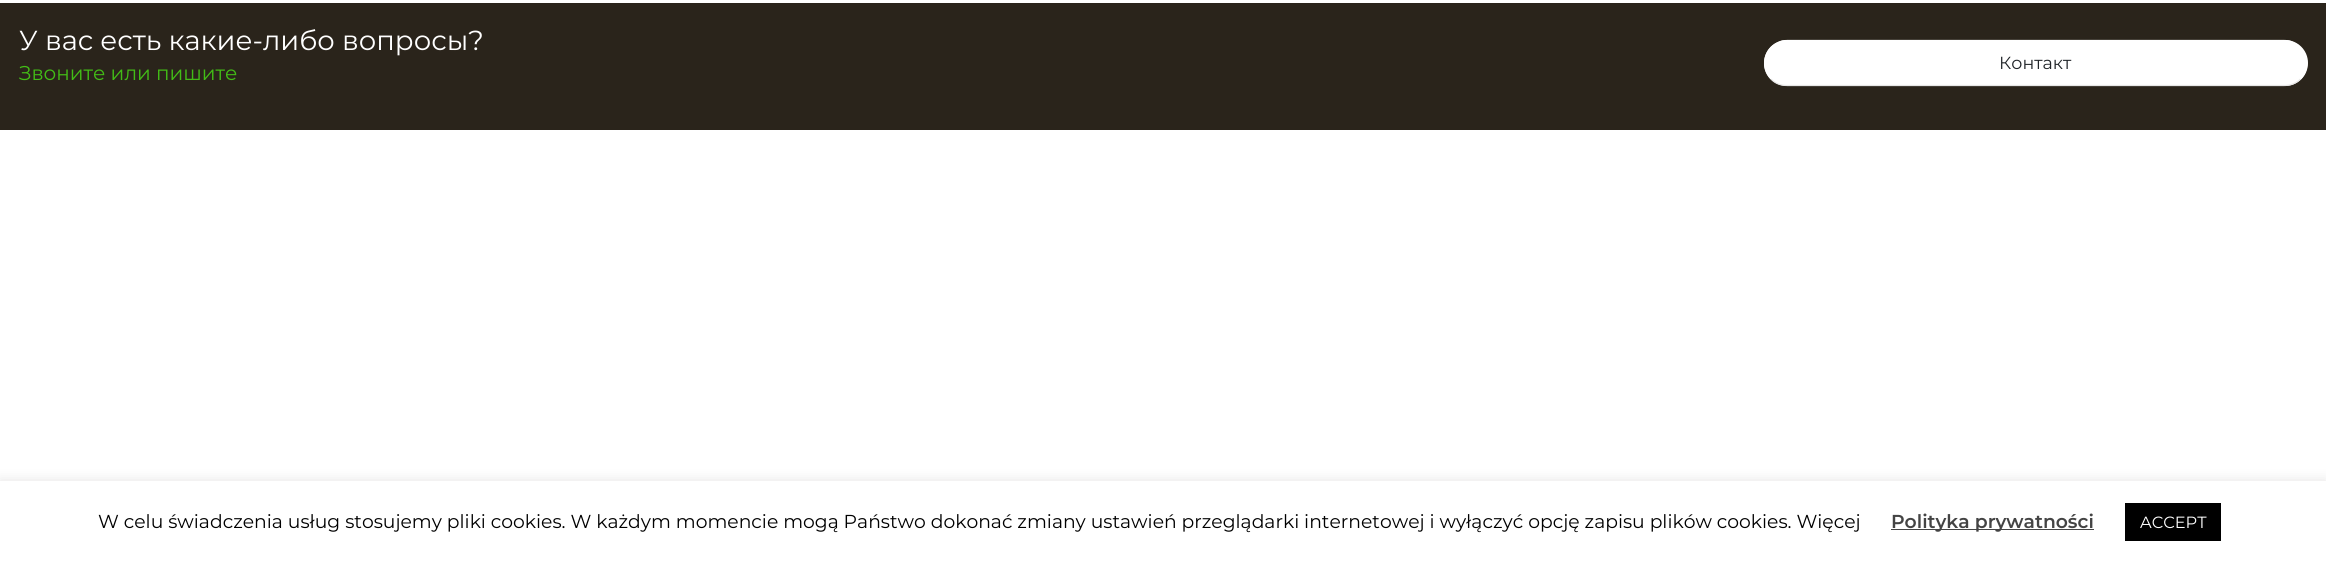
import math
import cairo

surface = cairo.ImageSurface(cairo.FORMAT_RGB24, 2326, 562)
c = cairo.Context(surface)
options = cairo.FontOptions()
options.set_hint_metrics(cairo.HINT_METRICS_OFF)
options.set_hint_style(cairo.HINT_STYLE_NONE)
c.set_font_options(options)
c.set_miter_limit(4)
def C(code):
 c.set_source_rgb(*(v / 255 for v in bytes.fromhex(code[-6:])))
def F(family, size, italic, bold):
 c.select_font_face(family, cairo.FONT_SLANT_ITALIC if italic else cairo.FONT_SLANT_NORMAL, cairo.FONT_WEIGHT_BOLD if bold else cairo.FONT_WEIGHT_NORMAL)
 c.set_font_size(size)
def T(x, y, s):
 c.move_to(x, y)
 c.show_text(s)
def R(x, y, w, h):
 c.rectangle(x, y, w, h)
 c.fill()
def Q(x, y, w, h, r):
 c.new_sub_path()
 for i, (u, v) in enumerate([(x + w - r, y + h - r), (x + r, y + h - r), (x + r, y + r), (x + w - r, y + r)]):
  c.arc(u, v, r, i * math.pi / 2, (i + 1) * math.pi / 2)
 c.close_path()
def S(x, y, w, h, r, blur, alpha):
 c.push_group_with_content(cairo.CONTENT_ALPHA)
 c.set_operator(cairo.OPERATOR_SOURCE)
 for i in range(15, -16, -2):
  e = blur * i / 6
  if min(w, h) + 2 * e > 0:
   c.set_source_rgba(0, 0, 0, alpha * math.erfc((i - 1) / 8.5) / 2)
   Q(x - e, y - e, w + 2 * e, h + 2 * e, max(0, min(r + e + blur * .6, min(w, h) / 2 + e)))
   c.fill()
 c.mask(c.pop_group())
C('ffffff')
c.paint()
C('2a241b')
R(0,3,2326,127)
F('Montserrat',27.5,0,0)
C('ffffff')
T(19,50,'У вас есть какие-либо вопросы?')
F('Montserrat',20,0,0)
C('42bd16')
T(19,80,'Звоните или пишите')
C('ffffff')
Q(1764,40,544,46,23)
c.fill()
c.new_path()
c.move_to(2300.5,79)
c.curve_to(2296,83.5,2290.5,85.5,2284.5,85.5)
c.line_to(1787,85.5)
c.curve_to(1781,85.5,1775,83.5,1771,79)
C('e6e6e6')
c.set_line_width(1.2)
c.stroke()
c.new_path()
c.move_to(1771,79)
c.curve_to(1760,68,1763.5,48.5,1778.5,42.5)
c.curve_to(1781,41,1784,40.5,1787,40.5)
c.line_to(2284.5,40.5)
c.curve_to(2287.5,40.5,2290.5,41,2293,42.5)
c.curve_to(2307.5,48.5,2311.5,68,2300.5,79)
C('ffffff')
c.stroke()
F('Montserrat',17.5,0,0)
C('212529')
T(1999,69,'Контакт')
C('acabab')
S(0,480,2326,81,0,6,.3)
C('ffffff')
R(0,481,2326,81)
F('Montserrat',18.75,0,0)
C('000000')
T(98,528,'W celu świadczenia usług stosujemy pliki cookies. W każdym momencie mogą Państwo dokonać zmiany ustawień przeglądarki internetowej i wyłączyć opcję zapisu plików cookies. Więcej')
C('444444')
R(1891,529,203,1)
F('Montserrat SemiBold',18.75,0,0)
T(1891,528,'Polityka prywatności')
C('000000')
R(2125,503,96,38)
F('Montserrat',16.25,0,0)
C('ffffff')
T(2140,528,'ACCEPT')
surface.write_to_png('o.png')
